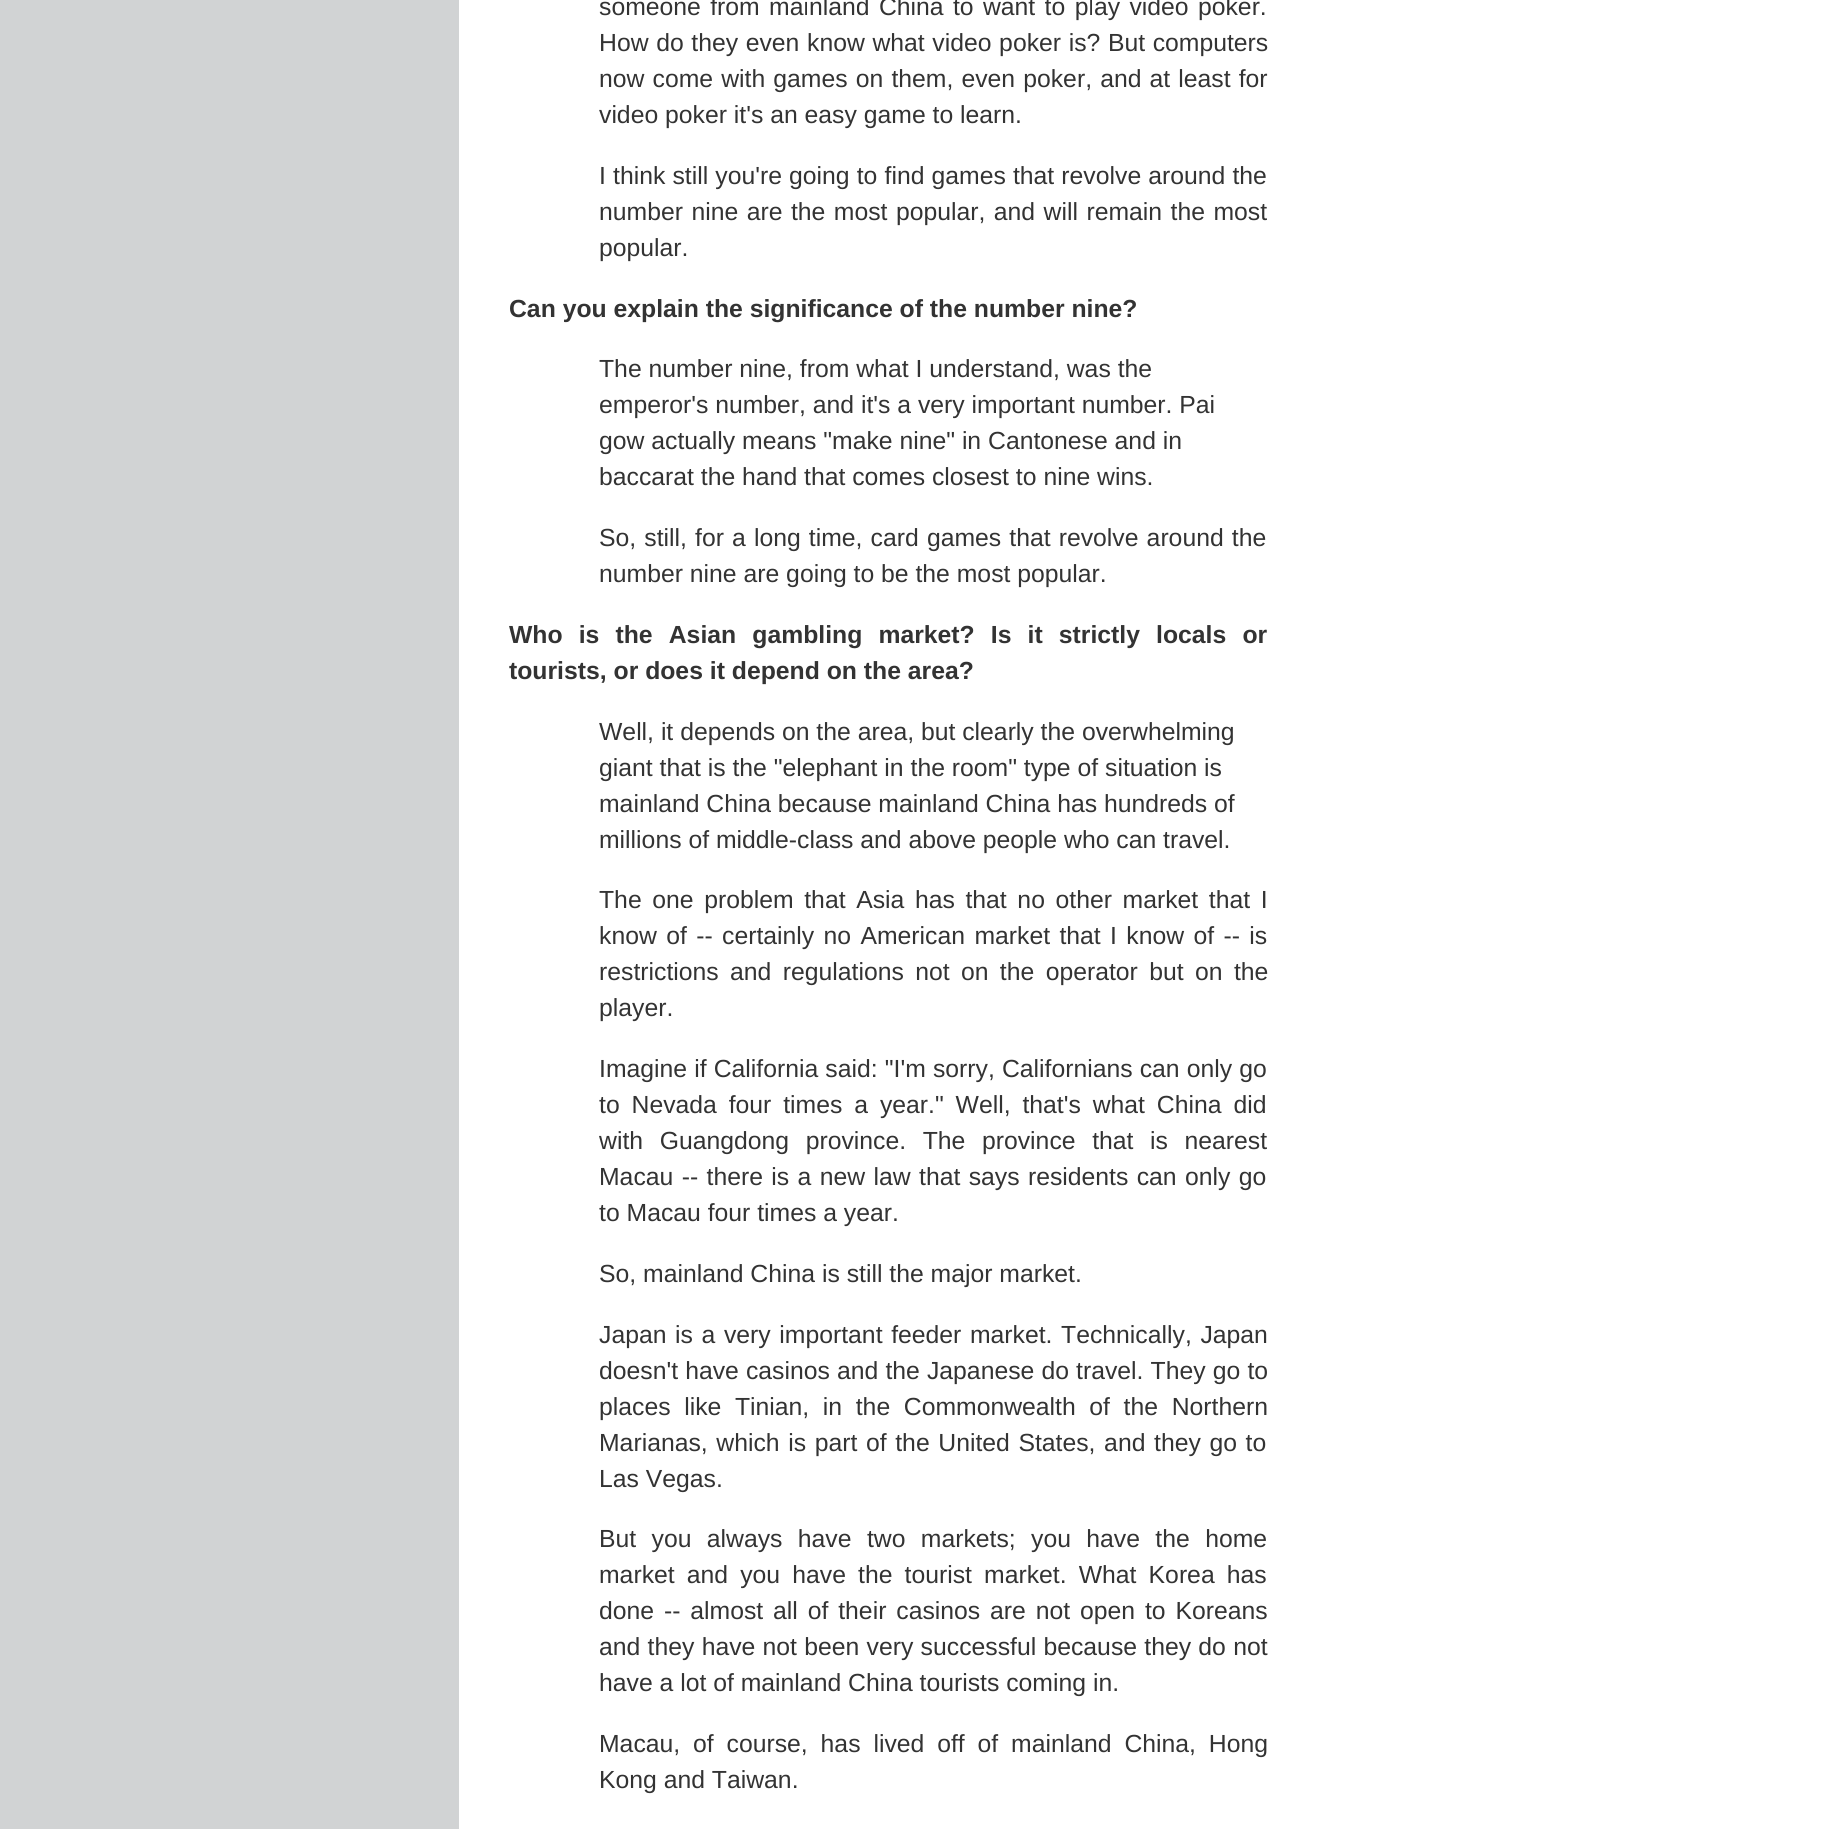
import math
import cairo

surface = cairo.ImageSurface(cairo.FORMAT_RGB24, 1833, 1829)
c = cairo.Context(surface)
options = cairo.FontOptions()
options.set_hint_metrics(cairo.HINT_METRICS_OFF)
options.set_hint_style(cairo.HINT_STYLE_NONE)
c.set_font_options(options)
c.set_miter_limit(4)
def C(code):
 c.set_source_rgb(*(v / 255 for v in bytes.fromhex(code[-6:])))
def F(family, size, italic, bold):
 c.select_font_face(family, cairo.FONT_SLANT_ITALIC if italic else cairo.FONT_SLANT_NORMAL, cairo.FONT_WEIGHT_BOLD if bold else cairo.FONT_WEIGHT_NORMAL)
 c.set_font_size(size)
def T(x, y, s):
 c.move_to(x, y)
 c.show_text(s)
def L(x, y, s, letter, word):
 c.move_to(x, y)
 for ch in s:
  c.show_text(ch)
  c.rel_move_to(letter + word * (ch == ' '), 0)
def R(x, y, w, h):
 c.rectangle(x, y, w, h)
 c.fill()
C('ffffff')
c.paint()
C('d1d3d4')
R(0,0,459,1829)
F('Liberation Sans',24.75,0,0)
C('333333')
L(599,15,'someone from mainland China to want to play video poker.',0,2.5)
L(599,51,'How do they even know what video poker is? But computers',0,.75)
L(599,87,'now come with games on them, even poker, and at least for',0,1.25)
T(599,123,'video poker it\'s an easy game to learn.')
L(599,184,'I think still you\'re going to find games that revolve around the',0,.25)
L(599,220,'number nine are the most popular, and will remain the most',0,1.6)
T(599,256,'popular.')
F('Liberation Sans',24.75,0,1)
T(509,317,'Can you explain the significance of the number nine?')
F('Liberation Sans',24.75,0,0)
T(599,377,'The number nine, from what I understand, was the')
T(599,413,'emperor\'s number, and it\'s a very important number. Pai')
T(599,449,'gow actually means "make nine" in Cantonese and in')
T(599,485,'baccarat the hand that comes closest to nine wins.')
L(599,546,'So, still, for a long time, card games that revolve around the',0,1.25)
T(599,582,'number nine are going to be the most popular.')
F('Liberation Sans',24.75,0,1)
L(509,643,'Who is the Asian gambling market? Is it strictly locals or',0,9.25)
T(509,679,'tourists, or does it depend on the area?')
F('Liberation Sans',24.75,0,0)
T(599,740,'Well, it depends on the area, but clearly the overwhelming')
T(599,776,'giant that is the "elephant in the room" type of situation is')
T(599,812,'mainland China because mainland China has hundreds of')
T(599,848,'millions of middle-class and above people who can travel.')
L(599,908,'The one problem that Asia has that no other market that I',0,3.75)
L(599,944,'know of -- certainly no American market that I know of -- is',0,2.5)
L(599,980,'restrictions and regulations not on the operator but on the',0,4.5)
T(599,1016,'player.')
L(599,1077,'Imagine if California said: "I\'m sorry, Californians can only go',0,.25)
L(599,1113,'to Nevada four times a year." Well, that\'s what China did',0,5)
L(599,1149,'with Guangdong province. The province that is nearest',0,9.75)
L(599,1185,'Macau -- there is a new law that says residents can only go',0,1.5)
T(599,1221,'to Macau four times a year.')
T(599,1282,'So, mainland China is still the major market.')
L(599,1343,'Japan is a very important feeder market. Technically, Japan',0,1.75)
L(599,1379,'doesn\'t have casinos and the Japanese do travel. They go to',0,.25)
L(599,1415,'places like Tinian, in the Commonwealth of the Northern',0,6.75)
L(599,1451,'Marianas, which is part of the United States, and they go to',0,1.75)
T(599,1487,'Las Vegas.')
L(599,1547,'But you always have two markets; you have the home',0,8.5)
L(599,1583,'market and you have the tourist market. What Korea has',0,5.25)
L(599,1619,'done -- almost all of their casinos are not open to Koreans',0,3)
L(599,1655,'and they have not been very successful because they do not',0,.4)
T(599,1691,'have a lot of mainland China tourists coming in.')
L(599,1752,'Macau, of course, has lived off of mainland China, Hong',0,6)
T(599,1788,'Kong and Taiwan.')
surface.write_to_png('o.png')
